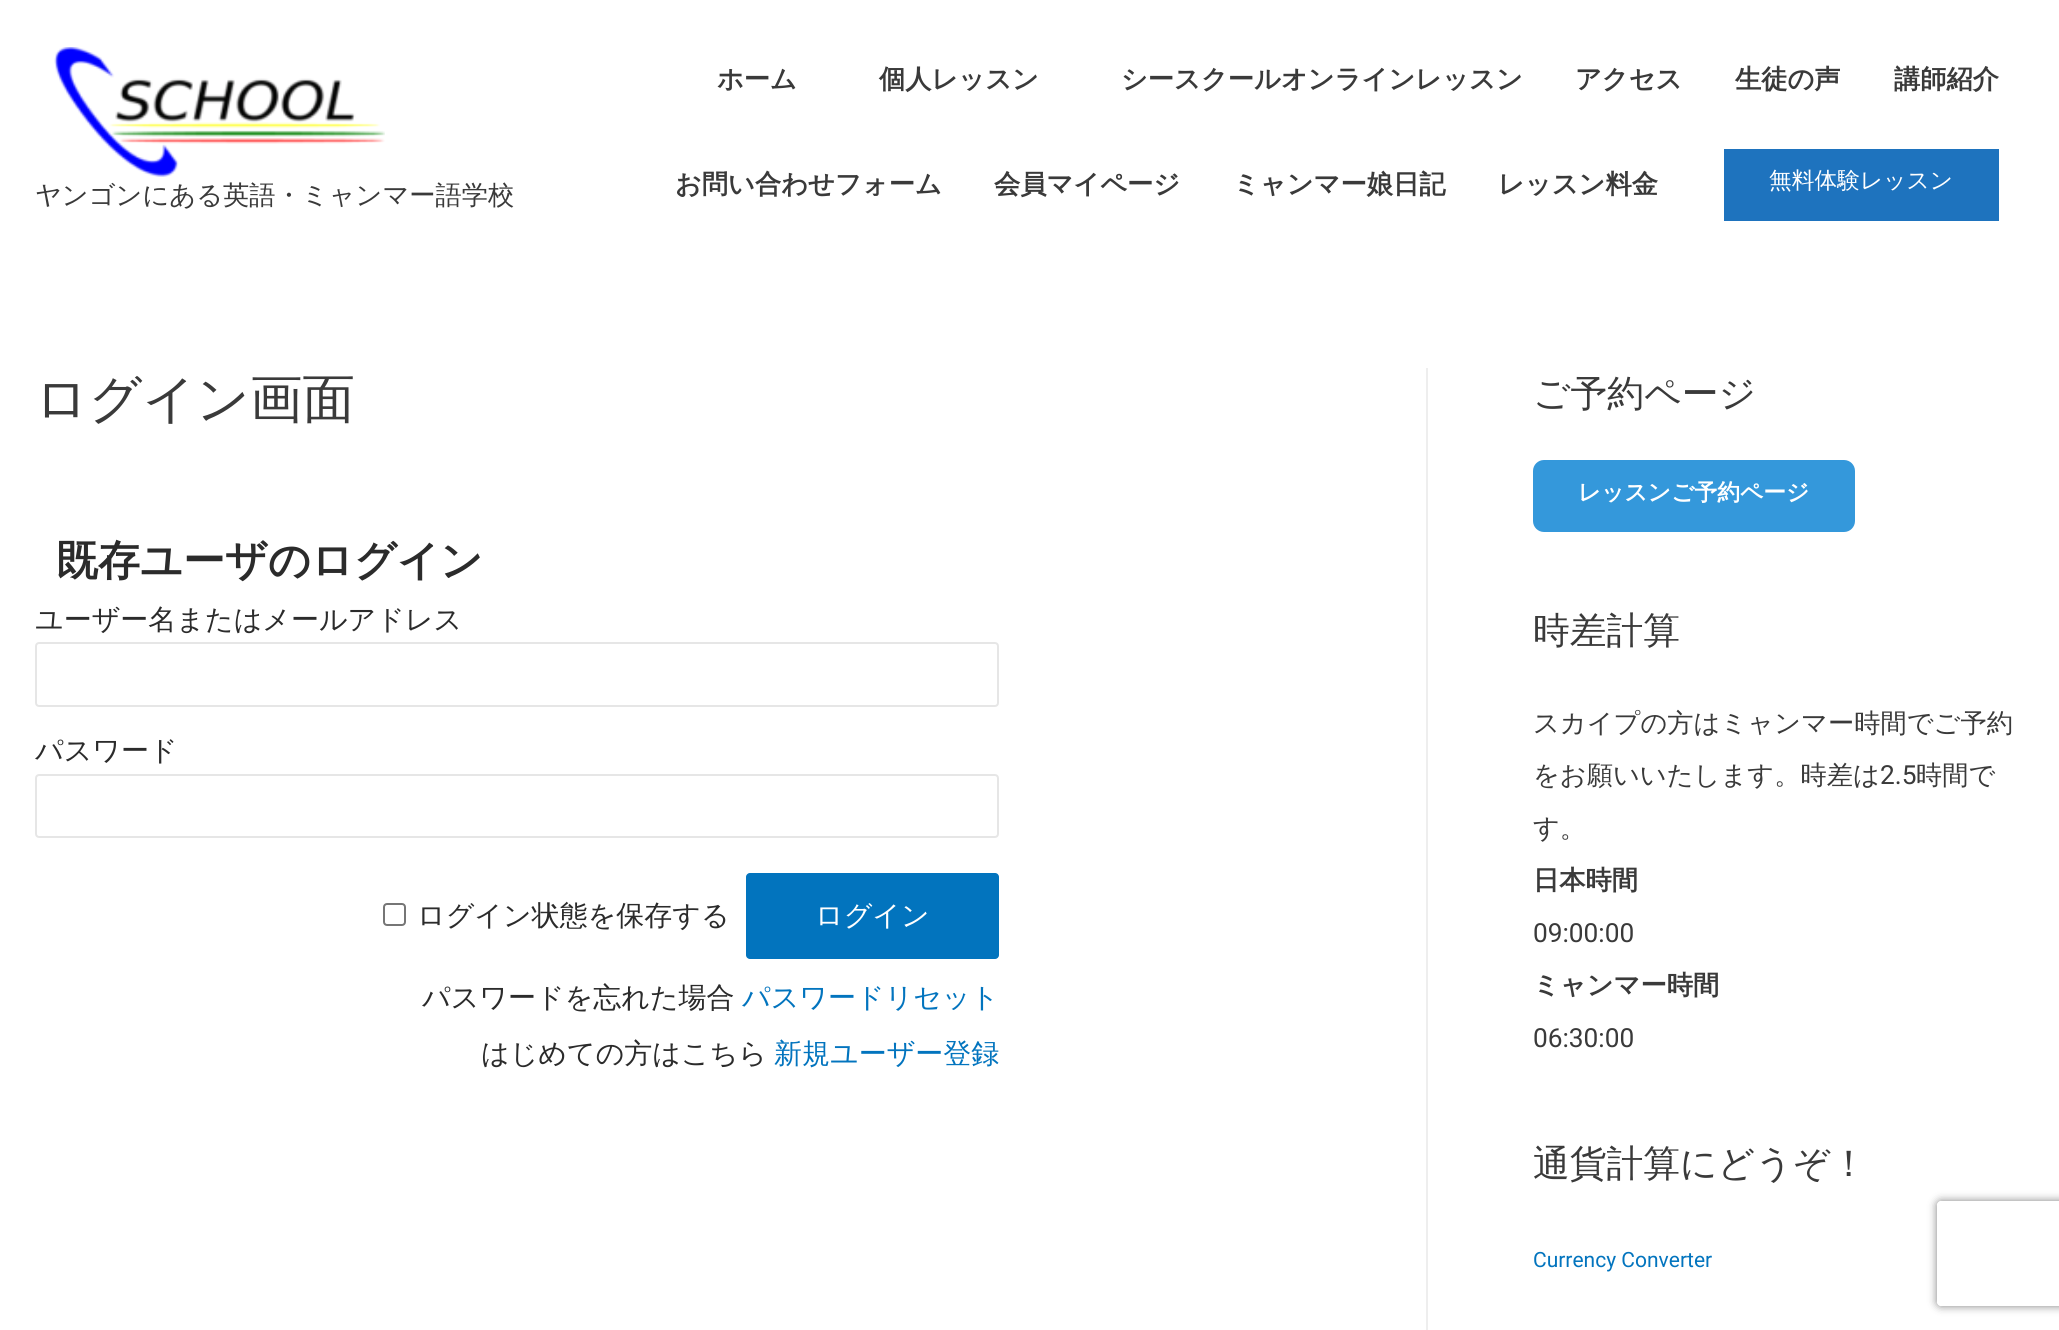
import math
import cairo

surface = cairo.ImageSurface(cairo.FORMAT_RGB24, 2059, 1330)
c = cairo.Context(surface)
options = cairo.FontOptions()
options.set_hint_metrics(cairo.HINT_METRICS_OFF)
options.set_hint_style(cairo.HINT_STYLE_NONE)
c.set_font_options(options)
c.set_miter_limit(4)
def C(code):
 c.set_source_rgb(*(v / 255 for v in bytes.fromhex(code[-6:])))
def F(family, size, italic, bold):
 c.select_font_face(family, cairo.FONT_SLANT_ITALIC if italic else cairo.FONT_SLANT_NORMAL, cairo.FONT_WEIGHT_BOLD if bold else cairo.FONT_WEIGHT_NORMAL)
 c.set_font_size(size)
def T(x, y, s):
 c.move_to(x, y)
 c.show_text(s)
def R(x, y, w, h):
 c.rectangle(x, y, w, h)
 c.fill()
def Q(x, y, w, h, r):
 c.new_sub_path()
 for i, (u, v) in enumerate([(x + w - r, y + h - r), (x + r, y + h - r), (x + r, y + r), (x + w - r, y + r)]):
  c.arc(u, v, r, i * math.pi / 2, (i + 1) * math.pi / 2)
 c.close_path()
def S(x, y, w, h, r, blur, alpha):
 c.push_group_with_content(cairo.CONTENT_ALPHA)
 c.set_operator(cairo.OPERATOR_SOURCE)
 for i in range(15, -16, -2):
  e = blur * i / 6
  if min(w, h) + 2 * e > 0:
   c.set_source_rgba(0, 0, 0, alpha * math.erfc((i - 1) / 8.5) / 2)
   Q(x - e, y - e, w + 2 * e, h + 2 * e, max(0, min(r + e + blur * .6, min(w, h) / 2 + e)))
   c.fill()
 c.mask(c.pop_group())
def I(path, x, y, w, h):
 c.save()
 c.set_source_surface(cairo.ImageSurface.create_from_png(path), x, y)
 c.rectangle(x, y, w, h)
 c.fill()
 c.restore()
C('ffffff')
c.paint()
I('1.png',54,47,331,130)
F('WenQuanYi Zen Hei Medium',26.25,0,0)
C('3a3a3a')
T(35,204,'ヤンゴンにある英語・ミャンマー語学校')
F('WenQuanYi Zen Hei',26.25,0,1)
T(717,88,'ホーム')
T(879,88,'個人レッスン')
T(1121,88,'シースクールオンラインレッスン')
T(1575,88,'アクセス')
T(1735,88,'生徒の声')
T(1894,88,'講師紹介')
T(675,193,'お問い合わせフォーム')
T(994,193,'会員マイページ')
T(1233,193,'ミャンマー娘日記')
T(1498,193,'レッスン料金')
C('1e73be')
R(1724,149,275,72)
F('WenQuanYi Zen Hei Medium',22.75,0,0)
C('ffffff')
T(1769,188,'無料体験レッスン')
F('WenQuanYi Zen Hei Medium',52.5,0,0)
C('3a3a3a')
T(35,417,'ログイン画面')
F('WenQuanYi Zen Hei',42,0,1)
C('2b2b2b')
T(56,575,'既存ユーザのログイン')
F('WenQuanYi Zen Hei Medium',28,0,0)
T(35,629,'ユーザー名またはメールアドレス')
Q(36,643,962,63,3)
C('e6e6e6')
c.stroke()
C('2b2b2b')
T(35,760,'パスワード')
Q(36,775,962,62,3)
C('e6e6e6')
c.stroke()
Q(384,904,21,21,3)
C('767676')
c.stroke()
C('2b2b2b')
T(417,925,'ログイン状態を保存する')
C('0274be')
Q(746,873,253,86,4)
c.fill()
C('ffffff')
T(815,925,'ログイン')
C('2b2b2b')
T(422,1007,'パスワードを忘れた場合')
C('0274be')
T(742,1007,'パスワードリセット')
C('2b2b2b')
T(481,1063,'はじめての方はこちら')
C('0274be')
T(774,1063,'新規ユーザー登録')
C('eeeeee')
R(1426,368,2,962)
F('WenQuanYi Zen Hei Medium',36.75,0,0)
C('3a3a3a')
T(1533,406,'ご予約ページ')
C('3498db')
Q(1533,460,322,72,11)
c.fill()
F('WenQuanYi Zen Hei',22.75,0,1)
C('ffffff')
T(1578,500,'レッスンご予約ページ')
F('WenQuanYi Zen Hei Medium',36.75,0,0)
C('3a3a3a')
T(1533,643,'時差計算')
F('WenQuanYi Zen Hei Medium',26.25,0,0)
T(1533,732,'スカイプの方はミャンマー時間でご予約')
T(1533,784,'をお願いいたします。時差は')
F('Roboto',26.25,0,0)
T(1880,784,'2.5')
F('WenQuanYi Zen Hei Medium',26.25,0,0)
T(1916,784,'時間で')
T(1533,837,'す。')
F('WenQuanYi Zen Hei',26.25,0,1)
T(1533,889,'日本時間')
F('Roboto',26.25,0,0)
T(1533,942,'09:00:00')
F('WenQuanYi Zen Hei',26.25,0,1)
T(1533,994,'ミャンマー時間')
F('Roboto',26.25,0,0)
T(1533,1047,'06:30:00')
F('WenQuanYi Zen Hei Medium',36.75,0,0)
T(1533,1176,'通貨計算にどうぞ！')
F('Roboto',21,0,0)
C('0274be')
T(1533,1267,'Currency Converter')
c.save()
c.set_fill_rule(cairo.FILL_RULE_EVEN_ODD)
c.new_path()
c.move_to(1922,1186)
c.line_to(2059,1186)
c.line_to(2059,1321)
c.line_to(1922,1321)
c.close_path()
c.move_to(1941,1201)
c.line_to(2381,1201)
c.curve_to(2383,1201,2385,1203,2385,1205)
c.line_to(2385,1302)
c.curve_to(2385,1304,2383,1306,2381,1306)
c.line_to(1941,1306)
c.curve_to(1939,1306,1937,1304,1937,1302)
c.line_to(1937,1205)
c.curve_to(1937,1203,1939,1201,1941,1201)
c.close_path()
c.clip()
C('808080')
S(1937,1201,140,105,4,4.5,1)
c.restore()
surface.write_to_png('o.png')
